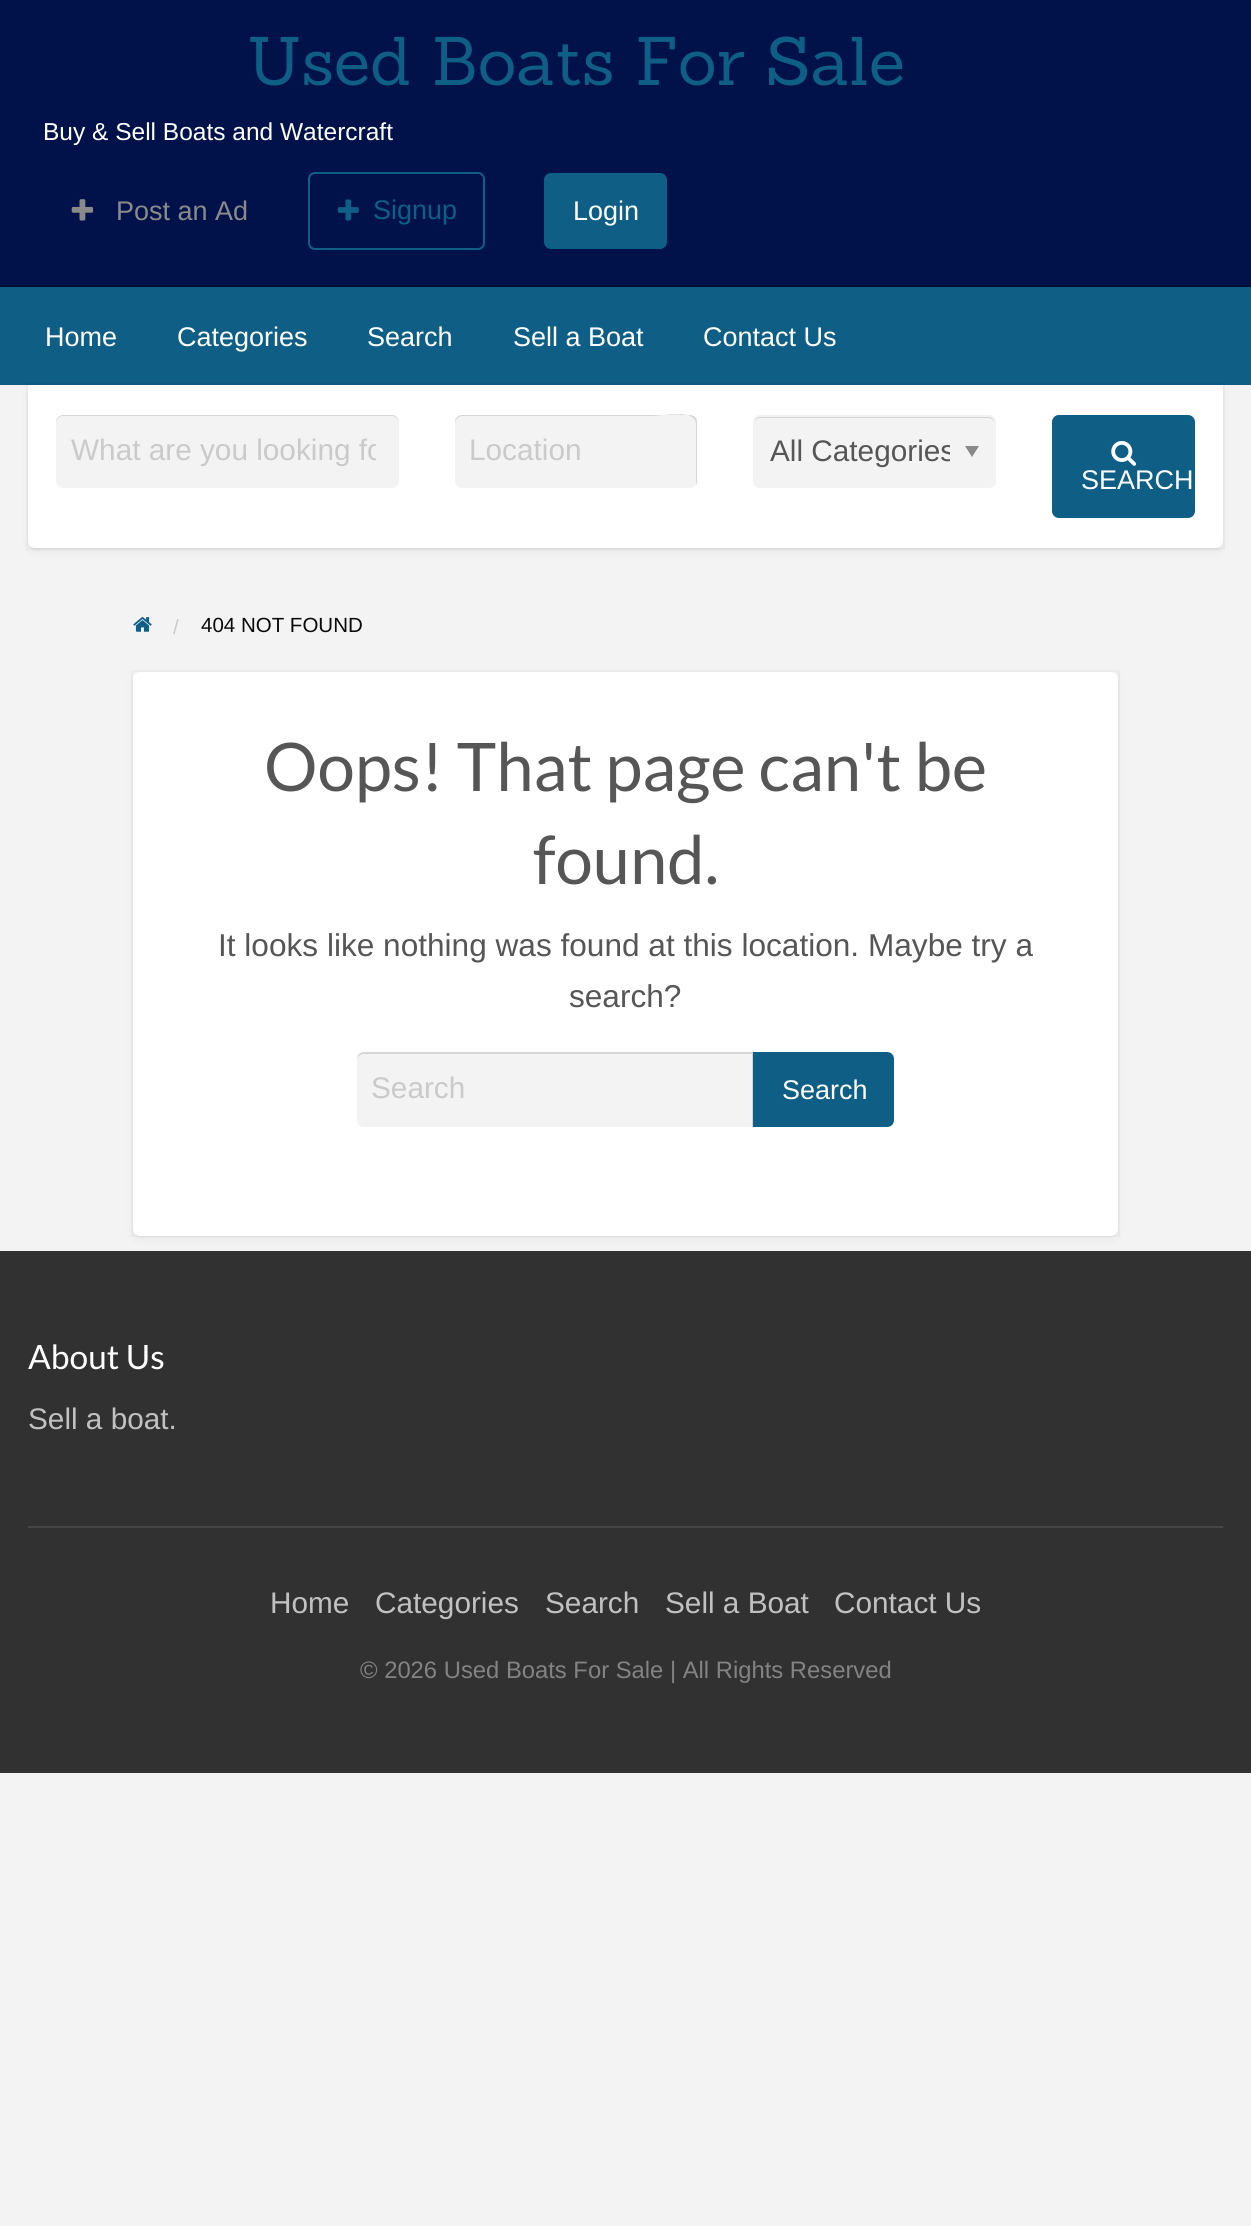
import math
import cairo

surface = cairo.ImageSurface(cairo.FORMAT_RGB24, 1251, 2226)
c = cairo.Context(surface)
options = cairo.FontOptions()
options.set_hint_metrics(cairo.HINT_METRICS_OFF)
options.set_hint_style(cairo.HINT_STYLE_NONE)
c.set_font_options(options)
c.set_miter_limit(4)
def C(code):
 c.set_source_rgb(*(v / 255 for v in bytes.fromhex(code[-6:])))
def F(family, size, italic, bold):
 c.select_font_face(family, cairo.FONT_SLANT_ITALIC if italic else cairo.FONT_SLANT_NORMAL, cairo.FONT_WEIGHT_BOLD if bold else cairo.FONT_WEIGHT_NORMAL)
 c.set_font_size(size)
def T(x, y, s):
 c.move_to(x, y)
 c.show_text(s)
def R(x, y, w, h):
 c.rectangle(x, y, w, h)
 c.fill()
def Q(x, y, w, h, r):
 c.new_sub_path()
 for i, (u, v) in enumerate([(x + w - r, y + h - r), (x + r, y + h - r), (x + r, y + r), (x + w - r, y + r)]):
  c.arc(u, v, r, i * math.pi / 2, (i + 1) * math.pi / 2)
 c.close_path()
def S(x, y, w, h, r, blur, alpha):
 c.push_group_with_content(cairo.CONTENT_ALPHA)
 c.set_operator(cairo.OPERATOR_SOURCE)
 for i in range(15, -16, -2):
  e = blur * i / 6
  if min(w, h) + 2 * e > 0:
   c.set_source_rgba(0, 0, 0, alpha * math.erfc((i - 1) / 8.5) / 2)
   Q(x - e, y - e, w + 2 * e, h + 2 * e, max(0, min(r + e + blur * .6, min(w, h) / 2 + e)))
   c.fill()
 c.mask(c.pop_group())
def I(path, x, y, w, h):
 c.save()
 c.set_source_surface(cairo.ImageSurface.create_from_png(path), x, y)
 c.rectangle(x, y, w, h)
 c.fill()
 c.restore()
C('f3f3f4')
c.paint()
C('001249')
R(0,0,1251,285)
C('000c30')
R(0,285,1251,2)
F('Sanchez',67,0,0)
C('0e5e86')
T(247,85,'Used Boats For Sale')
F('Liberation Sans',24.5,0,0)
C('ffffff')
T(43,140,'Buy & Sell Boats and Watercraft')
I('1.png',71,199,23,22)
F('Liberation Sans',27,0,0)
C('8a8a8a')
T(116,220,'Post an Ad')
Q(309,173,175,76,6)
C('0e5e86')
c.stroke()
I('2.png',337,199,22,22)
T(373,219,'Signup')
Q(544,173,123,76,7)
c.fill()
C('ffffff')
T(573,220,'Login')
C('0e5e86')
R(0,287,1251,98)
C('ffffff')
T(45,346,'Home')
T(177,346,'Categories')
T(367,346,'Search')
T(513,346,'Sell a Boat')
T(703,346,'Contact Us')
C('000000')
S(28,389,1195,162,7,4.5,.05)
S(28,387,1195,163,7,1,.05)
c.rectangle(27,384,1197,165)
c.set_source_rgba(0,0,0,0.03)
c.stroke()
C('ffffff')
c.new_path()
c.move_to(28,385)
c.line_to(1223,385)
c.line_to(1223,541)
c.curve_to(1223,545,1220,548,1216,548)
c.line_to(35,548)
c.curve_to(31,548,28,545,28,541)
c.close_path()
c.fill()
C('f3f3f4')
Q(56,415,343,73,7)
c.fill()
c.set_source_rgba(0,0,0,0.12)
c.new_path()
c.move_to(63,416)
c.line_to(392,416)
c.curve_to(396,416,399,420,399,424)
c.curve_to(399,420,397,415,392,415)
c.line_to(62,415)
c.curve_to(57,416,56,420,56,424)
c.curve_to(56,420,59,416,63,416)
c.close_path()
c.fill()
c.save()
c.rectangle(70,434,306,35)
c.clip()
F('Liberation Sans',29.75,0,0)
C('cacaca')
T(71,460,'What are you looking fo')
c.restore()
C('f3f3f4')
Q(455,415,242,73,7)
c.fill()
c.set_source_rgba(0,0,0,0.12)
c.new_path()
c.move_to(462,416)
c.line_to(652,416)
c.curve_to(663,416,693,408,696,423)
c.line_to(696,485)
c.curve_to(697,484,697,482,697,481)
c.line_to(697,422)
c.curve_to(697,418,694,415,690,415)
c.line_to(462,415)
c.curve_to(458,415,455,418,455,422)
c.line_to(455,424)
c.curve_to(455,420,458,416,462,416)
c.close_path()
c.fill()
F('Liberation Sans',29.75,0,0)
C('cacaca')
T(469,460,'Location')
C('f3f3f4')
Q(753,415,243,73,7)
c.fill()
C('8a8a8a')
c.new_path()
c.move_to(965,446)
c.line_to(979,446)
c.line_to(972,457)
c.close_path()
c.fill()
C('d5d5d6')
c.new_path()
c.move_to(760,418)
c.line_to(989,418)
c.curve_to(992,418,994,421,994,424)
c.curve_to(994,421,994,418,990,417)
c.line_to(758,417)
c.curve_to(754,418,754,421,754,424)
c.curve_to(754,421,757,418,760,418)
c.close_path()
c.fill()
Q(754,416,241,71,6)
C('f3f3f4')
c.stroke()
c.save()
c.rectangle(770,436,180,33)
c.clip()
C('565656')
T(770,461,'All Categories')
c.restore()
C('0e5e86')
Q(1052,415,143,103,7)
c.fill()
I('3.png',1111,441,26,25)
F('Liberation Sans',27,0,0)
C('ffffff')
T(1081,489,'SEARCH')
I('4.png',133,617,19,15)
F('Liberation Sans',20.5,0,0)
C('cacaca')
T(173,634,'/')
C('0a0a0a')
T(201,632,'404 NOT FOUND')
C('313131')
R(0,1251,1251,522)
C('000000')
S(133,676,985,563,7,4.5,.05)
S(133,674,985,563,7,1,.05)
c.rectangle(132,671,987,565)
c.set_source_rgba(0,0,0,0.03)
c.stroke()
C('ffffff')
Q(133,672,985,564,7)
c.fill()
F('Lato',67,0,0)
C('565656')
T(264,791,'Oops! That page can\'t be')
T(533,884,'found.')
F('Liberation Sans',31.6,0,0)
T(218,956,'It looks like nothing was found at this location. Maybe try a')
T(569,1007,'search?')
C('f3f3f4')
c.new_path()
c.move_to(364,1052)
c.line_to(753,1052)
c.line_to(753,1127)
c.line_to(364,1127)
c.curve_to(360,1127,357,1124,357,1120)
c.line_to(357,1059)
c.curve_to(357,1055,360,1052,364,1052)
c.close_path()
c.fill()
c.set_source_rgba(0,0,0,0.12)
c.new_path()
c.move_to(364,1054)
c.line_to(752,1054)
c.line_to(752,1127)
c.line_to(753,1127)
c.line_to(753,1052)
c.line_to(364,1052)
c.curve_to(359,1052,357,1056,357,1060)
c.curve_to(357,1057,360,1054,364,1054)
c.close_path()
c.fill()
F('Liberation Sans',29.75,0,0)
C('cacaca')
T(371,1098,'Search')
C('0e5e86')
c.new_path()
c.move_to(753,1052)
c.line_to(887,1052)
c.curve_to(891,1052,894,1055,894,1059)
c.line_to(894,1120)
c.curve_to(894,1124,891,1127,887,1127)
c.line_to(753,1127)
c.close_path()
c.fill()
F('Liberation Sans',27,0,0)
C('ffffff')
T(782,1099,'Search')
F('Lato',33.5,0,0)
T(28,1369,'About Us')
F('Liberation Sans',29.75,0,0)
C('c1c1c1')
T(28,1429,'Sell a boat.')
C('464646')
R(28,1526,1195,2)
C('c1c1c1')
T(270,1613,'Home')
T(375,1613,'Categories')
T(545,1613,'Search')
T(665,1613,'Sell a Boat')
T(834,1613,'Contact Us')
F('Liberation Sans',23.8,0,0)
C('838383')
T(360,1678,'© 2026 Used Boats For Sale | All Rights Reserved')
surface.write_to_png('o.png')
